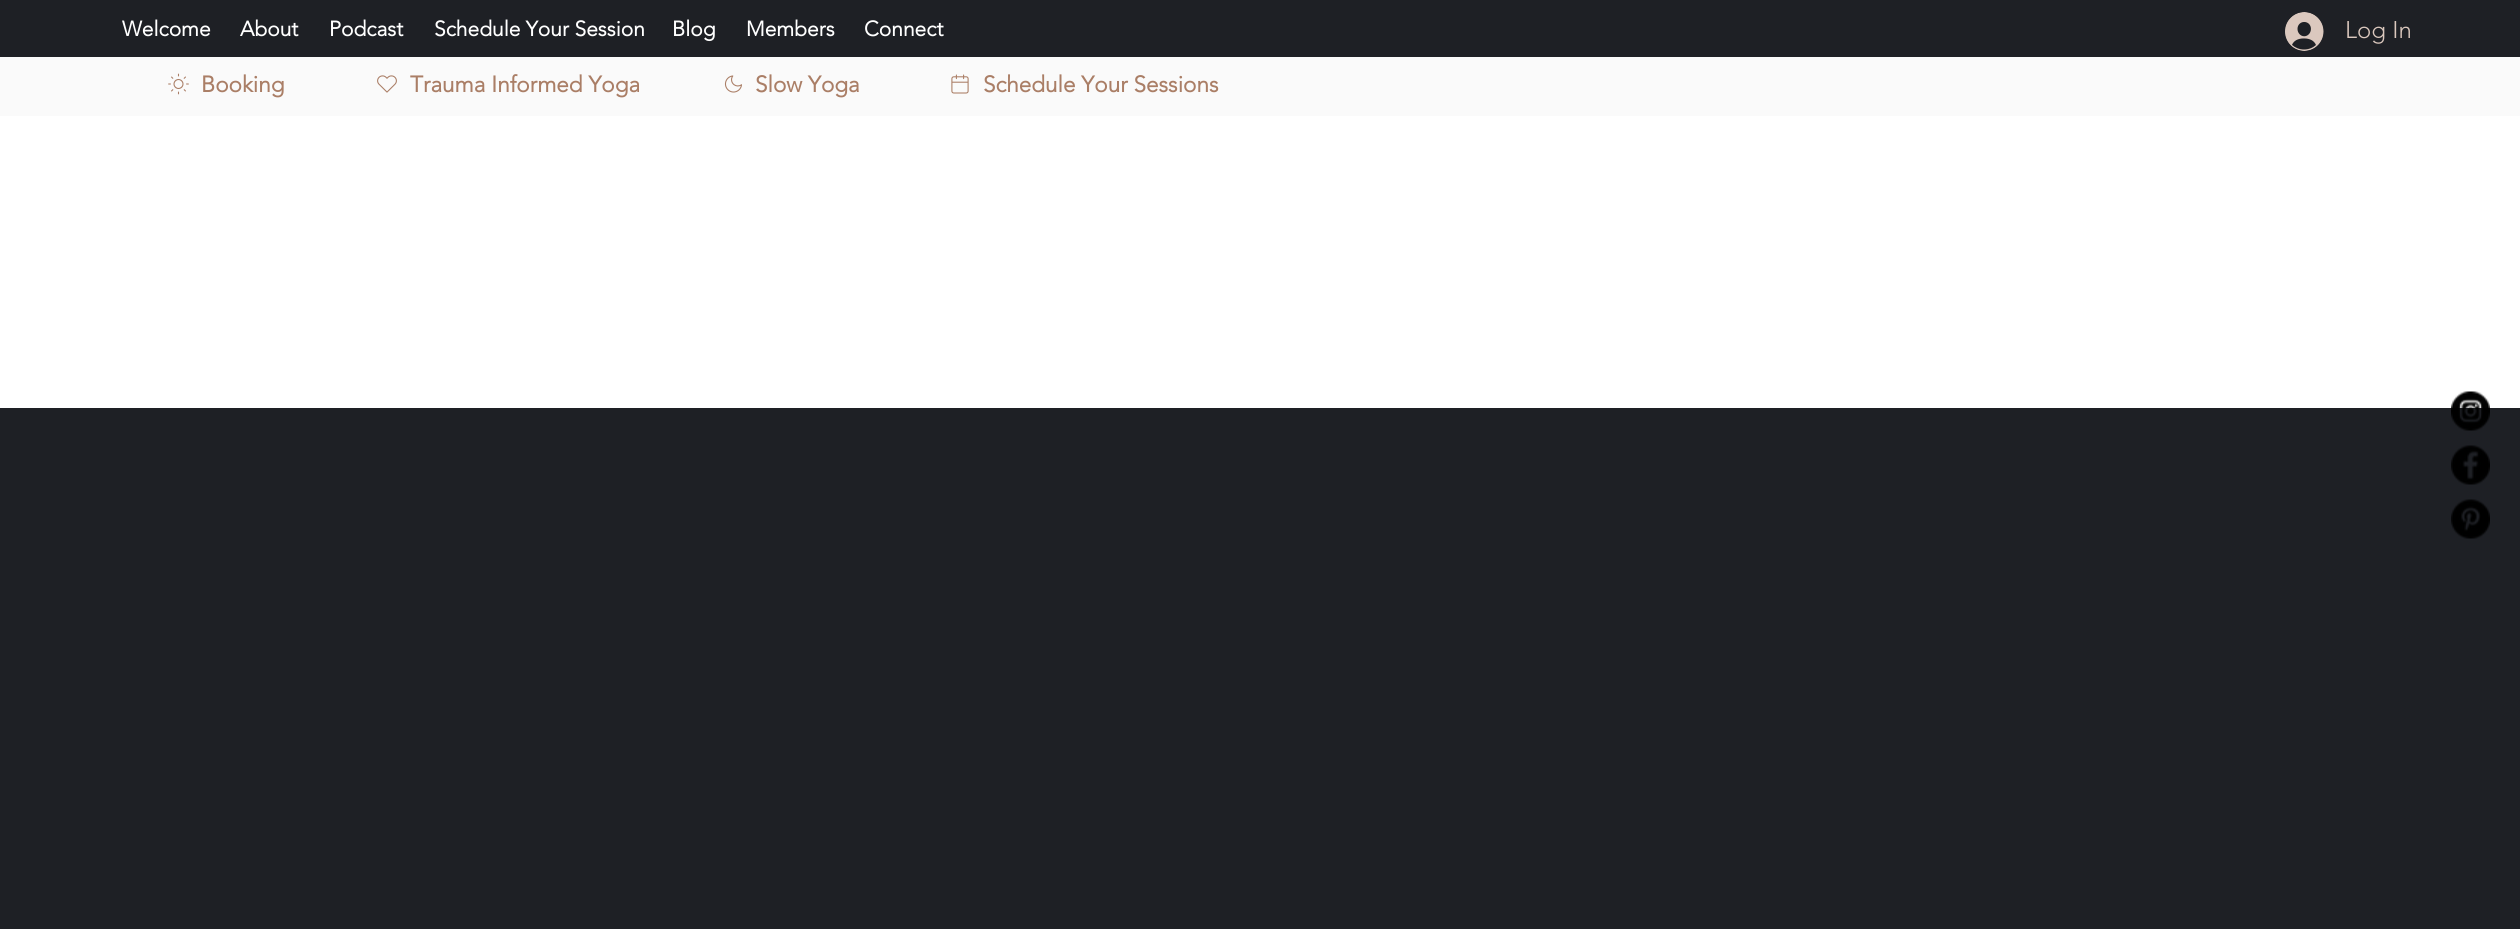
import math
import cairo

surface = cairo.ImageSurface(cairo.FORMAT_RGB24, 2520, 929)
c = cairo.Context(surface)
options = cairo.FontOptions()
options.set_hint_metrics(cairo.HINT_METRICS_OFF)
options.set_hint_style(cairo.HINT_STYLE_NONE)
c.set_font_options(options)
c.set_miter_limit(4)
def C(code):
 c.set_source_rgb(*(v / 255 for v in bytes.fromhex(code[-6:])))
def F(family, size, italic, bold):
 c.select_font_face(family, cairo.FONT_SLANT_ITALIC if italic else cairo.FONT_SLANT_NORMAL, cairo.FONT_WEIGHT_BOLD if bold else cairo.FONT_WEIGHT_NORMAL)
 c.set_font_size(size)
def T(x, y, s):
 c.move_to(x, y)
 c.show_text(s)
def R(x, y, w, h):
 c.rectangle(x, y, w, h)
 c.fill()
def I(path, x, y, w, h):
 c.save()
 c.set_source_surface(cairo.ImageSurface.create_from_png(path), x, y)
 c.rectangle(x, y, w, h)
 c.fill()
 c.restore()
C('ffffff')
c.paint()
C('1e2025')
R(0,0,2520,57)
F('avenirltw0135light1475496',21,0,1)
C('ffffff')
T(122,36,'Welcome')
T(240,36,'About')
T(329,36,'Podcast')
T(434,36,'Schedule Your Session')
T(672,36,'Blog')
T(746,36,'Members')
T(864,36,'Connect')
I('1.png',2285,12,39,39)
F('avenirltw0135light1475496 Light',24,0,0)
C('dbc8be')
T(2345,38,'Log In')
C('fafafa')
R(0,57,2520,59)
I('2.png',168,73,21,22)
F('avenirltw0135light1475496',22.5,0,1)
C('aa7e66')
T(201,92,'Booking')
I('3.png',377,75,20,18)
T(410,92,'Trauma Informed Yoga')
I('4.png',724,75,18,18)
T(755,92,'Slow Yoga')
I('5.png',951,74,18,20)
T(983,92,'Schedule Your Sessions')
C('1e2025')
R(0,408,2520,521)
I('6.png',2451,391,39,40)
I('7.png',2451,445,39,40)
I('8.png',2451,499,39,40)
surface.write_to_png('o.png')
